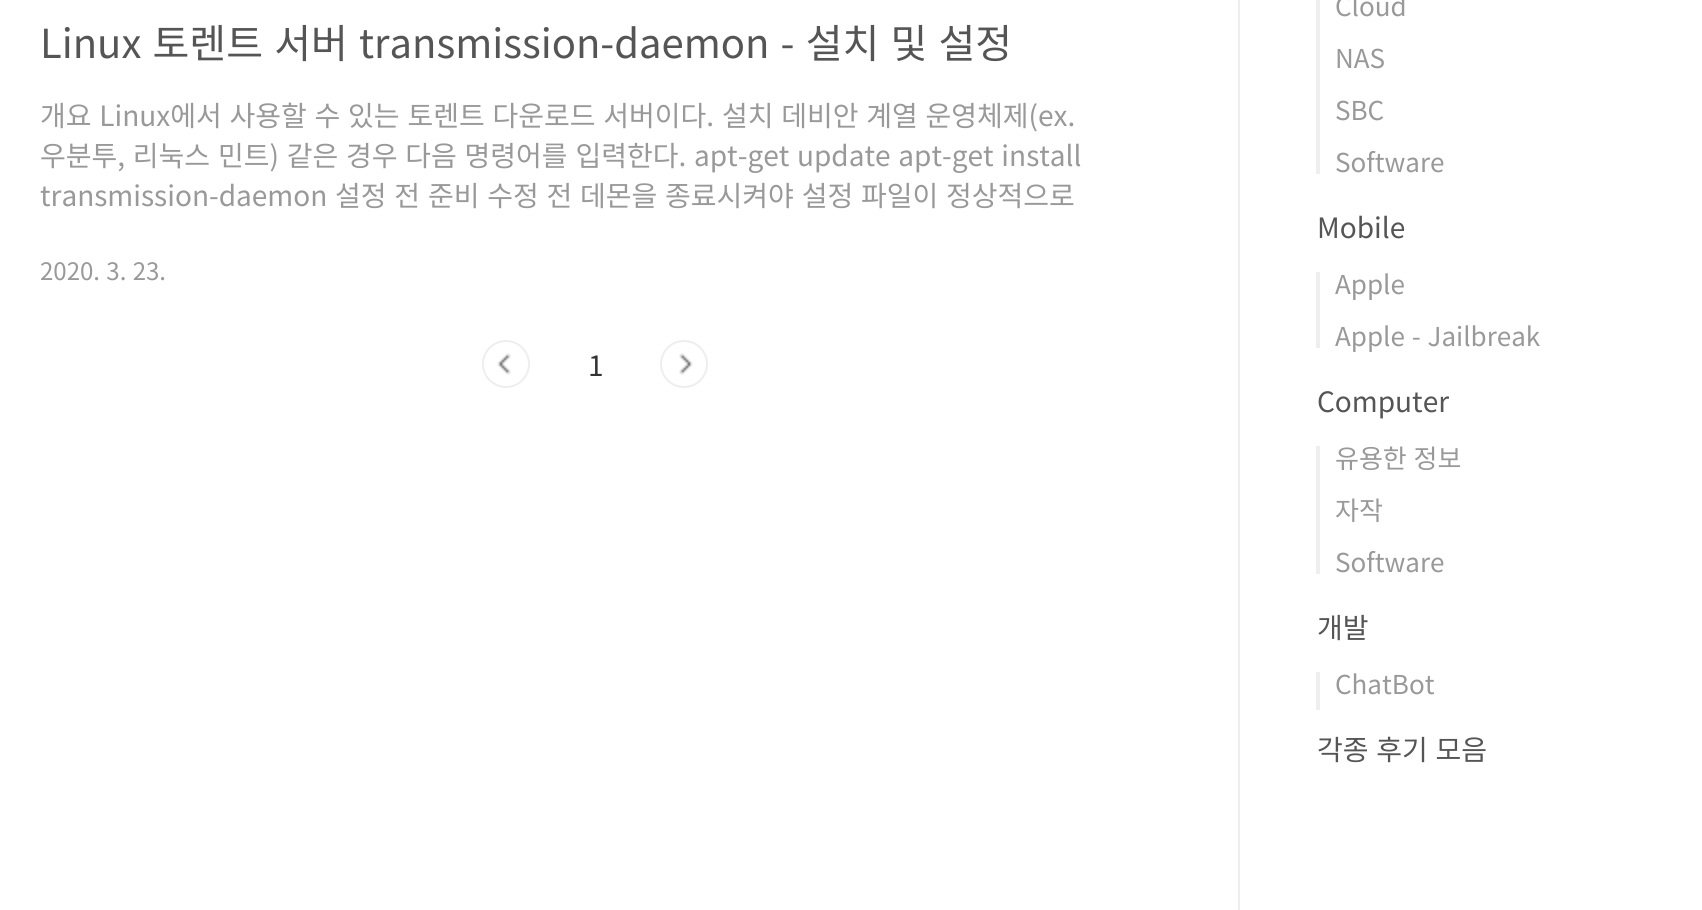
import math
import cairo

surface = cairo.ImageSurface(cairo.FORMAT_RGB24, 1702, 910)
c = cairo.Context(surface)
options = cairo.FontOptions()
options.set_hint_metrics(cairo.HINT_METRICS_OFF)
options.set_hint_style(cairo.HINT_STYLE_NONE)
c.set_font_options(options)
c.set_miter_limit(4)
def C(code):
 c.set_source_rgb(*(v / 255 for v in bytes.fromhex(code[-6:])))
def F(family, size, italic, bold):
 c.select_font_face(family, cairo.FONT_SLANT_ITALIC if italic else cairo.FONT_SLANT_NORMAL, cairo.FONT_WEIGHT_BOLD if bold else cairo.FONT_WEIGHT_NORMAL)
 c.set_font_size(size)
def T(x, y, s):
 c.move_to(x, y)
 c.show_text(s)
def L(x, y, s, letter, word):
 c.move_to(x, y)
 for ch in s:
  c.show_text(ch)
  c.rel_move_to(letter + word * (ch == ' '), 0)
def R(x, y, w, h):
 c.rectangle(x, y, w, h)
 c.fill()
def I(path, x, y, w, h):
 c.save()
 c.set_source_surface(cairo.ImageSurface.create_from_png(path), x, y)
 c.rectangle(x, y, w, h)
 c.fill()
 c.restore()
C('ffffff')
c.paint()
F('Noto Sans KR',40,0,0)
C('555555')
L(40,58,'Linux 토렌트 서버 transmission-daemon - 설치 및 설정',0,2.25)
F('Noto Sans KR',28,0,0)
C('999999')
L(40,126,'개요 Linux에서 사용할 수 있는 토렌트 다운로드 서버이다. 설치 데비안 계열 운영체제(ex.',0,1.5)
L(40,166,'우분투, 리눅스 민트) 같은 경우 다음 명령어를 입력한다. apt-get update apt-get install',0,1.5)
L(40,206,'transmission-daemon 설정 전 준비 수정 전 데몬을 종료시켜야 설정 파일이 정상적으로',0,1.5)
F('Noto Sans KR',24,0,0)
L(40,280,'2020. 3. 23.',0,1)
I('1.png',497,353,14,22)
c.arc(506,364,23,0,2 * math.pi)
C('eeeeee')
c.stroke()
F('Noto Sans KR',28,0,0)
C('333333')
T(588,376,'1')
I('2.png',679,353,14,22)
c.arc(684,364,23,0,2 * math.pi)
C('eeeeee')
c.stroke()
R(1238,0,2,910)
R(1316,0,4,174)
F('Noto Sans KR',26,0,0)
C('999999')
T(1335,16,'Cloud')
T(1335,68,'NAS')
T(1335,120,'SBC')
T(1335,172,'Software')
F('Noto Sans KR',28,0,0)
C('555555')
T(1317,238,'Mobile')
C('eeeeee')
R(1316,272,4,76)
F('Noto Sans KR',26,0,0)
C('999999')
T(1335,294,'Apple')
L(1335,346,'Apple - Jailbreak',0,1)
F('Noto Sans KR',28,0,0)
C('555555')
T(1317,412,'Computer')
C('eeeeee')
R(1316,446,4,128)
F('Noto Sans KR',26,0,0)
C('999999')
L(1335,468,'유용한 정보',0,1)
T(1335,520,'자작')
T(1335,572,'Software')
F('Noto Sans KR',28,0,0)
C('555555')
T(1317,638,'개발')
C('eeeeee')
R(1316,672,4,38)
F('Noto Sans KR',26,0,0)
C('999999')
T(1335,694,'ChatBot')
F('Noto Sans KR',28,0,0)
C('555555')
L(1317,760,'각종 후기 모음',0,1.5)
surface.write_to_png('o.png')
